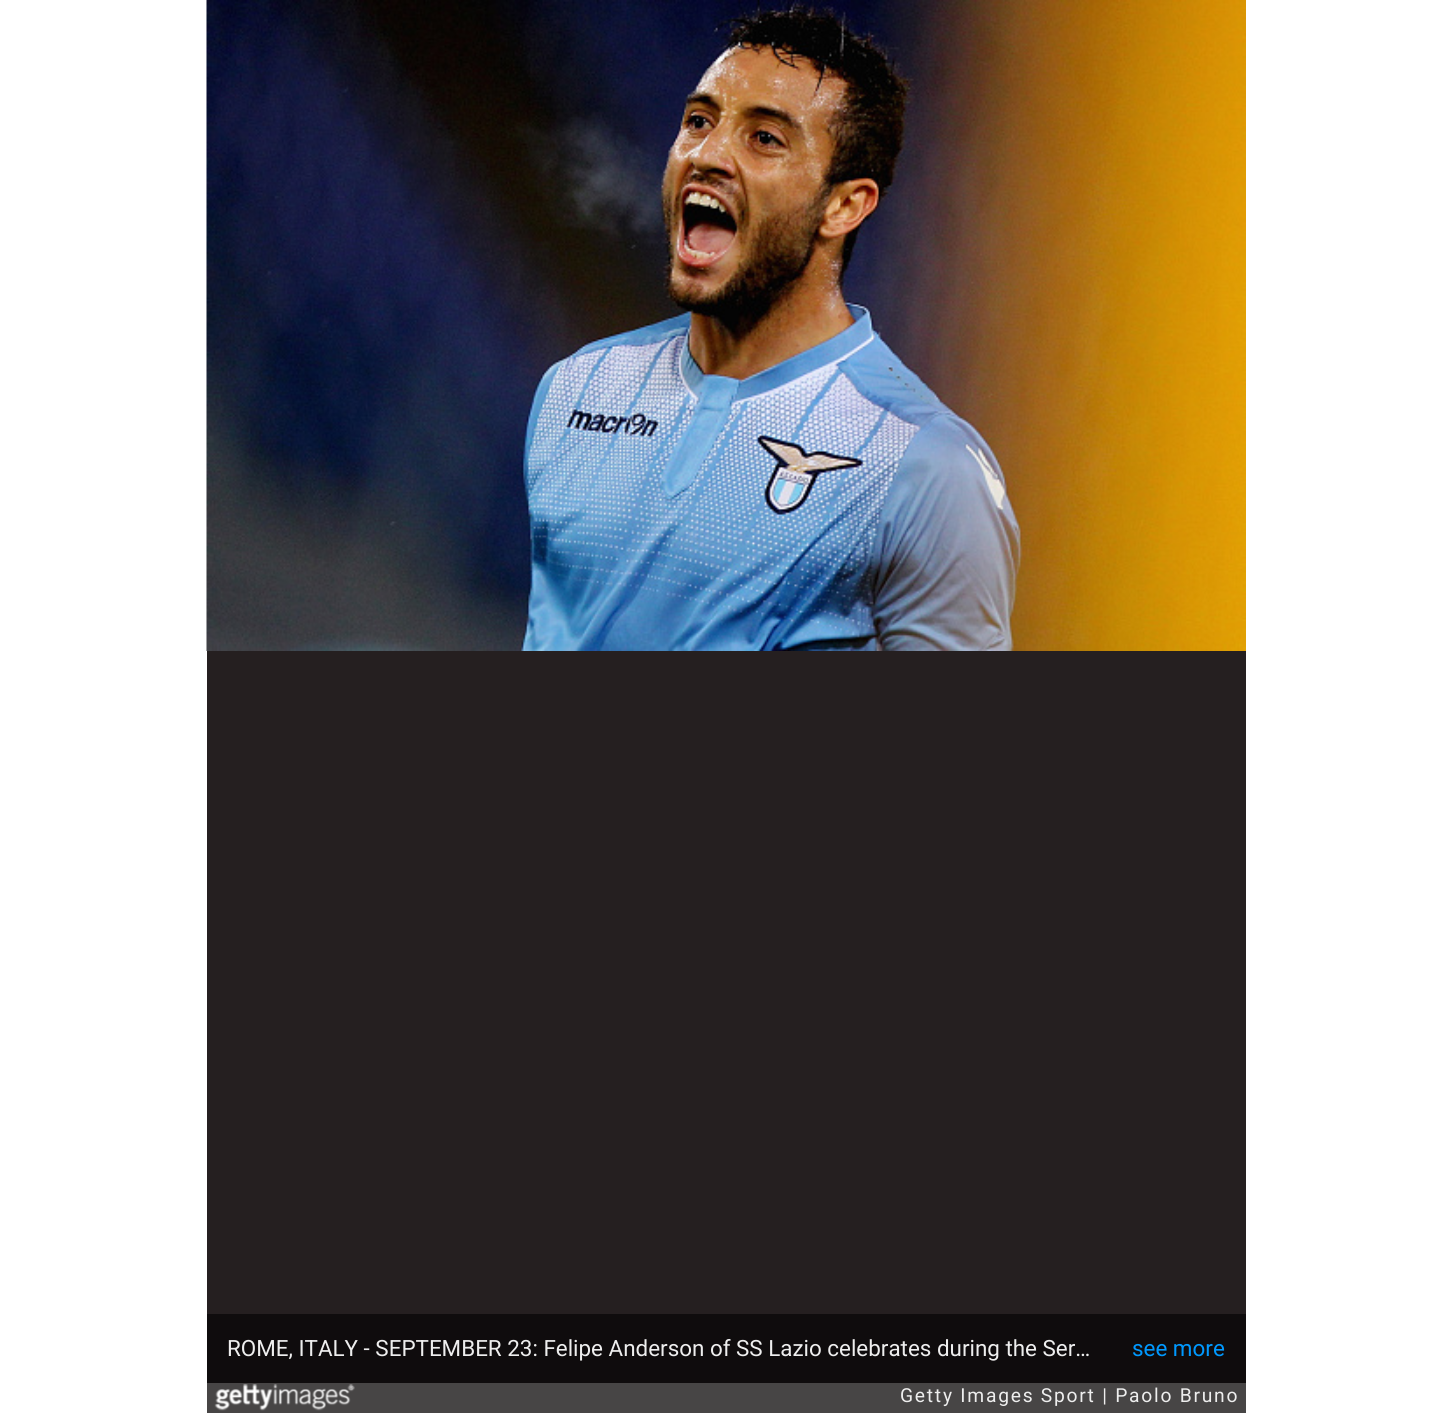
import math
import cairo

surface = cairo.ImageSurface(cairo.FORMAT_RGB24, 1451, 1413)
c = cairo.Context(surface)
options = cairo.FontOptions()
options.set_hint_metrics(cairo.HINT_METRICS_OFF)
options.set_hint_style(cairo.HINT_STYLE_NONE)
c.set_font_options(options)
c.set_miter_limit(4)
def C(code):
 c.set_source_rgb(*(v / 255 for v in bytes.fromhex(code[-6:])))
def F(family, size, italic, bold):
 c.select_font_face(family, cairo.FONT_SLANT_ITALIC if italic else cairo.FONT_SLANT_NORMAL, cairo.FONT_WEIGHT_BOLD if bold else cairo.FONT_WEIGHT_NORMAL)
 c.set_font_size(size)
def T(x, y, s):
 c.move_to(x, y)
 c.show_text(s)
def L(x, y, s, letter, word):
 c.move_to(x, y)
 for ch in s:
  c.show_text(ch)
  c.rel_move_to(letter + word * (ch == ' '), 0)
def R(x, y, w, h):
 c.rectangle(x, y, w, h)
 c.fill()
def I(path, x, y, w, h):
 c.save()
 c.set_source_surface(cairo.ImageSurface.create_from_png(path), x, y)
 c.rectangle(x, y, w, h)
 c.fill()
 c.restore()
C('ffffff')
c.paint()
C('251f20')
R(207,651,1039,663)
I('1.png',206,0,1040,651)
C('0f0c0d')
R(207,1314,1039,69)
F('Roboto',22.4,0,0)
C('eeeeee')
T(227,1356,'ROME, ITALY - SEPTEMBER 23: Felipe Anderson of SS Lazio celebrates during the Ser…')
C('0099ff')
T(1132,1356,'see more')
C('474545')
R(207,1383,1039,30)
I('2.png',214,1384,141,27)
F('Roboto',19.25,0,0)
C('eeeeee')
L(900,1402,'Getty Images Sport | Paolo Bruno',1.75,0)
surface.write_to_png('o.png')
